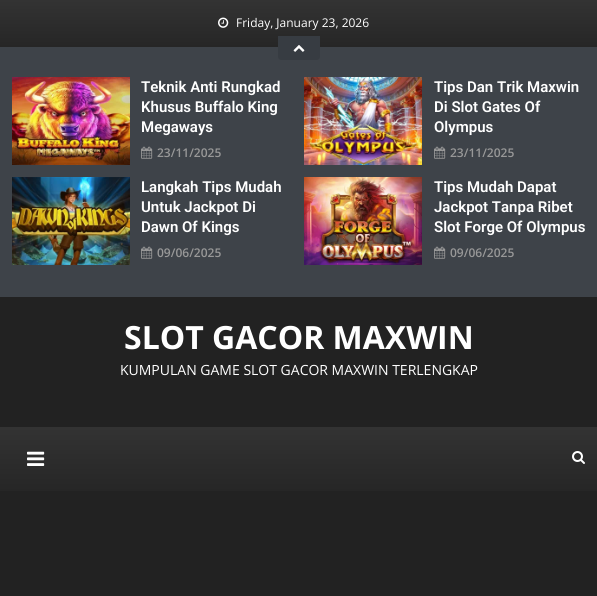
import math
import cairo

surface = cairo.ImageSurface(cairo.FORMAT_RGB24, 597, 596)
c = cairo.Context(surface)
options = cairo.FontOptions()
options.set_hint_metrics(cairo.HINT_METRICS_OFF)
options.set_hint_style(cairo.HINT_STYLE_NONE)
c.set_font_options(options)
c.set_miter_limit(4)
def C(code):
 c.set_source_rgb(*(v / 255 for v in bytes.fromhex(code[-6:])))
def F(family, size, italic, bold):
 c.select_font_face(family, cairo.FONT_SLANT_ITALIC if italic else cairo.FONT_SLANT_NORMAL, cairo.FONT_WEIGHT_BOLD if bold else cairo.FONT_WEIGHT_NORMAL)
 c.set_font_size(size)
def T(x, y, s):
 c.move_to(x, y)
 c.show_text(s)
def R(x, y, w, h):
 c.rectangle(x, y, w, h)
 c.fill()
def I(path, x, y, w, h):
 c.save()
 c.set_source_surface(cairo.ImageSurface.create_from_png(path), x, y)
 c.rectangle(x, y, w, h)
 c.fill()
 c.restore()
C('222222')
c.paint()
gradient = cairo.LinearGradient(299,0,299,47)
gradient.add_color_stop_rgba(.01,0.2,0.2,0.2,1)
gradient.add_color_stop_rgba(1,0.149,0.149,0.149,1)
c.set_source(gradient)
R(0,0,597,47)
I('1.png',218,17,11,11)
F('Open Sans',12,0,0)
C('ffffff')
T(236,27,'Friday, January 23, 2026')
C('3e4349')
R(0,47,597,250)
C('373c42')
c.new_path()
c.move_to(278,36)
c.line_to(320,36)
c.line_to(320,57)
c.curve_to(320,58.5,318.5,60,317,60)
c.line_to(281,60)
c.curve_to(279.5,60,278,58.5,278,57)
c.close_path()
c.fill()
I('2.png',293,45,12,7)
I('3.png',12,77,118,88)
F('Roboto SemiBold',15,0,0)
C('ffffff')
T(141,92,'Teknik Anti Rungkad')
T(141,112,'Khusus Buffalo King')
T(141,132,'Megaways')
I('4.png',141,146,12,13)
F('Open Sans SemiBold',12,0,0)
C('989898')
T(157,157,'23/11/2025')
I('5.png',304,77,118,88)
F('Roboto SemiBold',15,0,0)
C('ffffff')
T(434,92,'Tips Dan Trik Maxwin')
T(434,112,'Di Slot Gates Of')
T(434,132,'Olympus')
I('4.png',434,146,12,13)
F('Open Sans SemiBold',12,0,0)
C('989898')
T(450,157,'23/11/2025')
I('6.png',12,177,118,88)
F('Roboto SemiBold',15,0,0)
C('ffffff')
T(141,192,'Langkah Tips Mudah')
T(141,212,'Untuk Jackpot Di')
T(141,232,'Dawn Of Kings')
I('4.png',141,246,12,13)
F('Open Sans SemiBold',12,0,0)
C('989898')
T(157,257,'09/06/2025')
I('7.png',304,177,118,88)
F('Roboto SemiBold',15,0,0)
C('ffffff')
T(434,192,'Tips Mudah Dapat')
T(434,212,'Jackpot Tanpa Ribet')
T(434,232,'Slot Forge Of Olympus')
I('4.png',434,246,12,13)
F('Open Sans SemiBold',12,0,0)
C('989898')
T(450,257,'09/06/2025')
F('Open Sans',32,0,1)
C('ffffff')
T(124,349,'SLOT GACOR MAXWIN')
F('Open Sans',14,0,0)
T(120,375,'KUMPULAN GAME SLOT GACOR MAXWIN TERLENGKAP')
gradient = cairo.LinearGradient(299,427,299,491)
gradient.add_color_stop_rgba(.01,0.2,0.2,0.2,1)
gradient.add_color_stop_rgba(1,0.149,0.149,0.149,1)
c.set_source(gradient)
R(0,427,597,64)
I('8.png',27,451,18,15)
I('9.png',572,451,13,13)
surface.write_to_png('o.png')
